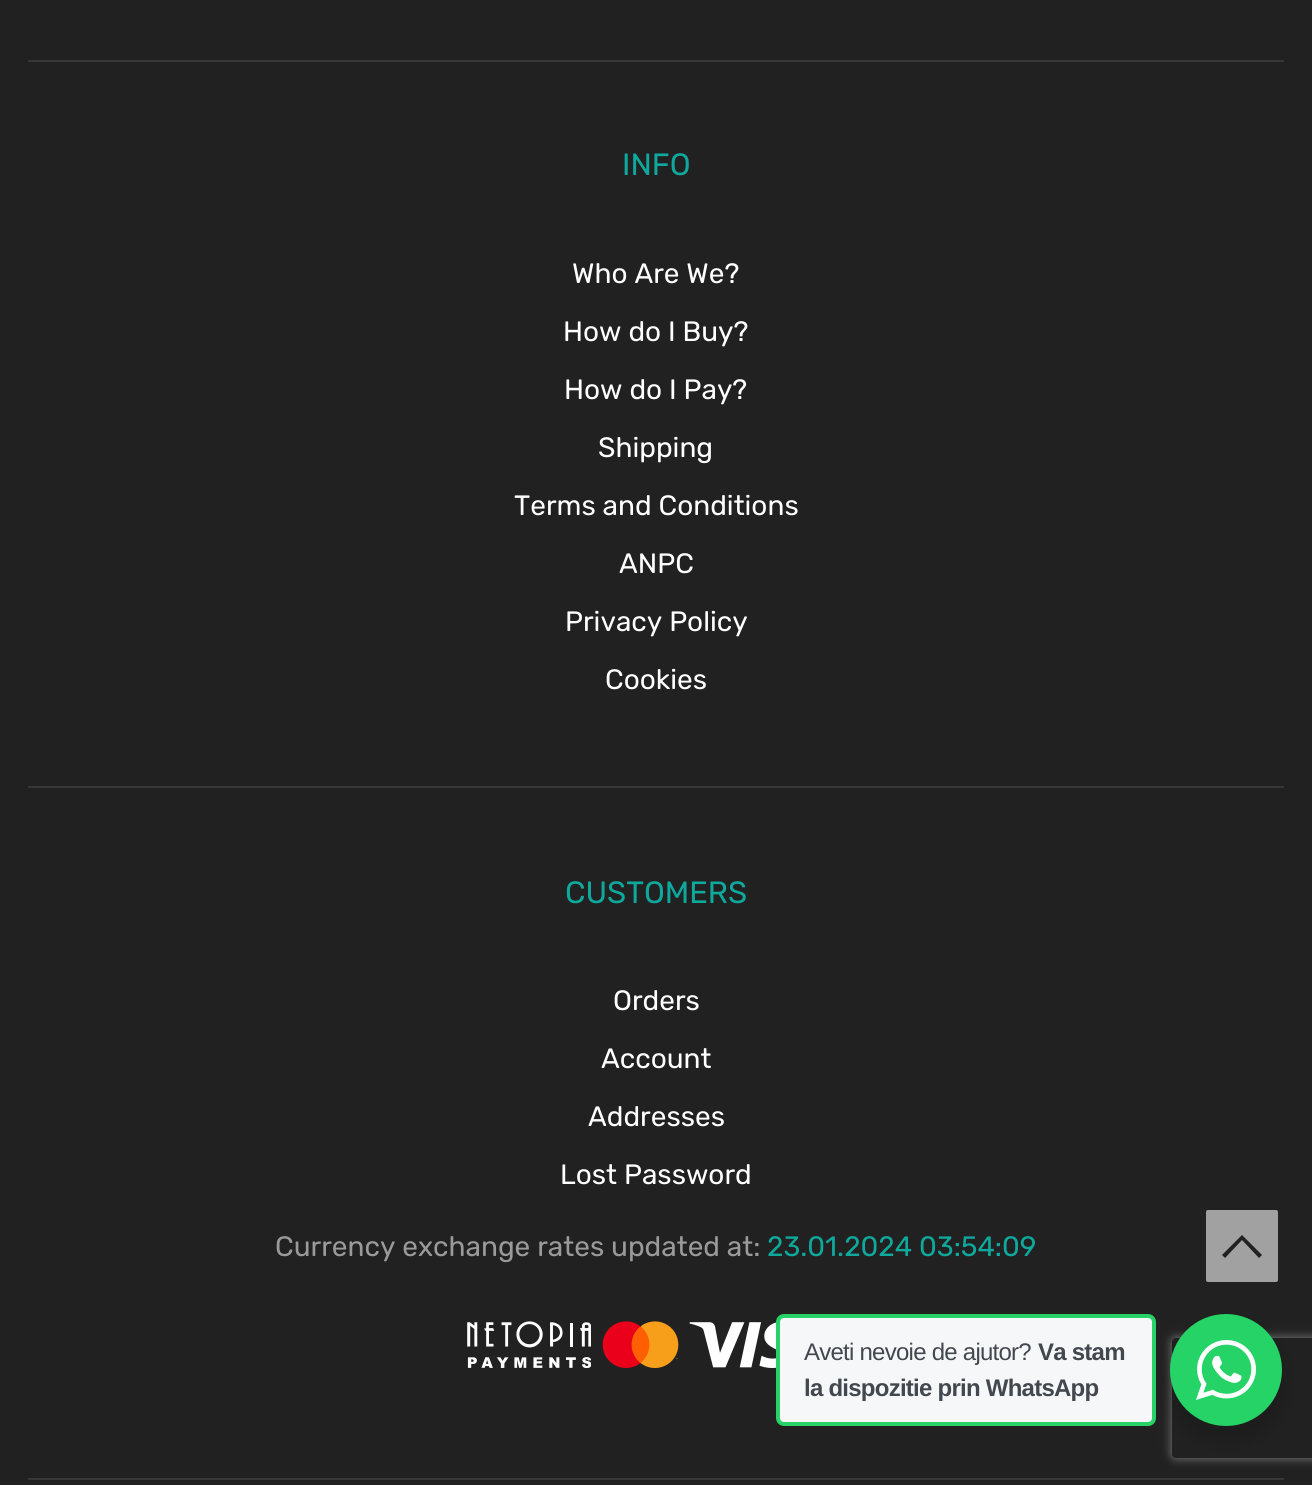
import math
import cairo

surface = cairo.ImageSurface(cairo.FORMAT_RGB24, 1312, 1485)
c = cairo.Context(surface)
options = cairo.FontOptions()
options.set_hint_metrics(cairo.HINT_METRICS_OFF)
options.set_hint_style(cairo.HINT_STYLE_NONE)
c.set_font_options(options)
c.set_miter_limit(4)
def C(code):
 c.set_source_rgb(*(v / 255 for v in bytes.fromhex(code[-6:])))
def F(family, size, italic, bold):
 c.select_font_face(family, cairo.FONT_SLANT_ITALIC if italic else cairo.FONT_SLANT_NORMAL, cairo.FONT_WEIGHT_BOLD if bold else cairo.FONT_WEIGHT_NORMAL)
 c.set_font_size(size)
def T(x, y, s):
 c.move_to(x, y)
 c.show_text(s)
def L(x, y, s, letter, word):
 c.move_to(x, y)
 for ch in s:
  c.show_text(ch)
  c.rel_move_to(letter + word * (ch == ' '), 0)
def R(x, y, w, h):
 c.rectangle(x, y, w, h)
 c.fill()
def Q(x, y, w, h, r):
 c.new_sub_path()
 for i, (u, v) in enumerate([(x + w - r, y + h - r), (x + r, y + h - r), (x + r, y + r), (x + w - r, y + r)]):
  c.arc(u, v, r, i * math.pi / 2, (i + 1) * math.pi / 2)
 c.close_path()
def S(x, y, w, h, r, blur, alpha):
 c.push_group_with_content(cairo.CONTENT_ALPHA)
 c.set_operator(cairo.OPERATOR_SOURCE)
 for i in range(15, -16, -2):
  e = blur * i / 6
  if min(w, h) + 2 * e > 0:
   c.set_source_rgba(0, 0, 0, alpha * math.erfc((i - 1) / 8.5) / 2)
   Q(x - e, y - e, w + 2 * e, h + 2 * e, max(0, min(r + e + blur * .6, min(w, h) / 2 + e)))
   c.fill()
 c.mask(c.pop_group())
def I(path, x, y, w, h):
 c.save()
 c.set_source_surface(cairo.ImageSurface.create_from_png(path), x, y)
 c.rectangle(x, y, w, h)
 c.fill()
 c.restore()
C('212121')
c.paint()
C('373737')
R(28,60,1256,2)
R(28,786,1256,2)
F('Rubik',30.75,0,0)
C('0fa89d')
T(622,175,'INFO')
F('Rubik',28,0,0)
C('ffffff')
T(572,283,'Who Are We?')
T(563,341,'How do I Buy?')
T(564,399,'How do I Pay?')
T(598,457,'Shipping')
T(514,515,'Terms and Conditions')
T(619,573,'ANPC')
T(565,631,'Privacy Policy')
T(605,689,'Cookies')
C('373737')
R(28,1478,1256,2)
F('Rubik',30.75,0,0)
C('0fa89d')
T(565,903,'CUSTOMERS')
F('Rubik',28,0,0)
C('ffffff')
T(613,1010,'Orders')
T(601,1068,'Account')
T(588,1126,'Addresses')
T(560,1184,'Lost Password')
C('9a9a9a')
T(275,1256,'Currency exchange rates updated at:')
C('0fa89d')
T(767,1256,'23.01.2024 03:54:09')
I('1.png',467,1321,309,47)
C('a1a1a1')
Q(1204,1208,76,76,4)
c.fill_preserve()
C('212121')
c.set_line_width(4)
c.stroke()
c.new_path()
c.move_to(1262,1255)
c.line_to(1242,1235)
c.line_to(1222,1255)
c.line_to(1225,1258)
c.line_to(1242,1240)
c.line_to(1259,1258)
c.close_path()
c.fill()
C('000000')
S(1166,1322,120,120,60,8,.14)
C('f5f7f9')
Q(778,1316,376,108,6)
c.fill_preserve()
C('27d366')
c.stroke()
F('Liberation Sans',24,0,0)
C('43474e')
L(804,1360,'Aveti nevoie de ajutor?',-.75,0)
F('Liberation Sans',24,0,1)
L(1038,1360,'Va stam',-.75,0)
L(804,1396,'la dispozitie prin WhatsApp',-.75,0)
c.save()
c.set_fill_rule(cairo.FILL_RULE_EVEN_ODD)
c.new_path()
c.move_to(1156,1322)
c.line_to(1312,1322)
c.line_to(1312,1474)
c.line_to(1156,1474)
c.close_path()
c.move_to(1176,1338)
c.line_to(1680,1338)
c.curve_to(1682,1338,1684,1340,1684,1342)
c.line_to(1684,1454)
c.curve_to(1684,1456,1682,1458,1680,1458)
c.line_to(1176,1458)
c.curve_to(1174,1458,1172,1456,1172,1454)
c.line_to(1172,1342)
c.curve_to(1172,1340,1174,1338,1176,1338)
c.close_path()
c.clip()
C('808080')
S(1172,1338,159,120,4,5,1)
c.restore()
C('25d366')
c.arc(1226,1370,56,0,2 * math.pi)
c.fill()
I('2.png',1196,1340,60,60)
surface.write_to_png('o.png')
